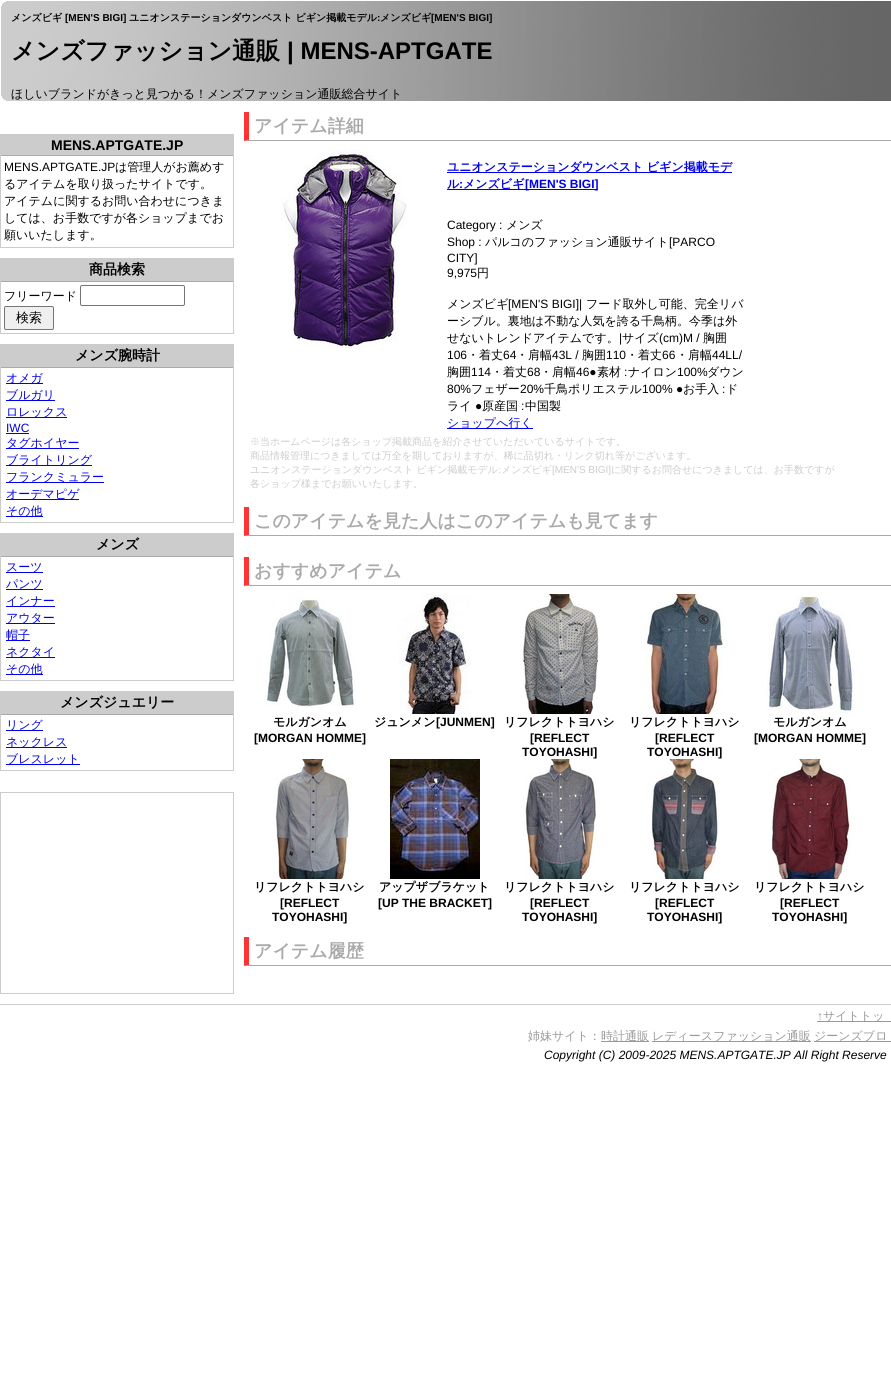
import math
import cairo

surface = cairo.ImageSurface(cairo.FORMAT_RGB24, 891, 1388)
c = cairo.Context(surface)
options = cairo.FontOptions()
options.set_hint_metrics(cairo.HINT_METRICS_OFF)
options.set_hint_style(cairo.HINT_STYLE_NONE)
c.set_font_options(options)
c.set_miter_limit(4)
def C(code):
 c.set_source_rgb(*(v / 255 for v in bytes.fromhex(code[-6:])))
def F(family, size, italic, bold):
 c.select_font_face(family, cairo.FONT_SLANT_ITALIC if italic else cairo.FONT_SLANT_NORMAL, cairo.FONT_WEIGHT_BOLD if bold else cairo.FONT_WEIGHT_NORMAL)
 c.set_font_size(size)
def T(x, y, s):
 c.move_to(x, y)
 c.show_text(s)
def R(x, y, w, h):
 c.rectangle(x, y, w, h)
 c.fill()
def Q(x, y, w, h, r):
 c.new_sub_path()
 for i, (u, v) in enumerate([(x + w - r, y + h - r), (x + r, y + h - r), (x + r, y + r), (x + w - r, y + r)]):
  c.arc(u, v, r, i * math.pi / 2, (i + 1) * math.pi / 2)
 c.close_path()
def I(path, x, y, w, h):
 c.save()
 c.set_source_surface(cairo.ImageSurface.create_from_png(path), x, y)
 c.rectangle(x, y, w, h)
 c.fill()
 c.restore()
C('ffffff')
c.paint()
I('1.png',1,1,890,100)
F('WenQuanYi Zen Hei',10,0,1)
C('000000')
T(11,21,'メンズビギ')
F('Liberation Sans',10,0,1)
T(65,21,'[MEN\'S BIGI]')
F('WenQuanYi Zen Hei',10,0,1)
T(129,21,'ユニオンステーションダウンベスト ビギン掲載モデル')
F('Liberation Sans',10,0,1)
T(377,21,':')
F('WenQuanYi Zen Hei',10,0,1)
T(380,21,'メンズビギ')
F('Liberation Sans',10,0,1)
T(431,21,'[MEN\'S BIGI]')
F('WenQuanYi Zen Hei',24,0,1)
T(11,59,'メンズファッション通販')
F('Liberation Sans',24,0,1)
T(287,59,'| MENS-APTGATE')
F('WenQuanYi Zen Hei Medium',12,0,0)
T(11,98,'ほしいブランドがきっと見つかる！メンズファッション通販総合サイト')
c.rectangle(.5,134.5,233,113)
C('cccccc')
c.set_line_width(1)
c.stroke()
R(1,135,232,20)
C('aaaaaa')
R(1,155,232,1)
F('Liberation Sans',14,0,1)
C('000000')
T(51,150,'MENS.APTGATE.JP')
F('Liberation Sans',12,0,0)
T(4,171,'MENS.APTGATE.JP')
F('WenQuanYi Zen Hei Medium',12,0,0)
T(115,171,'は管理人がお薦めす')
T(4,188,'るアイテムを取り扱ったサイトです。')
T(4,205,'アイテムに関するお問い合わせにつきま')
T(4,222,'しては、お手数ですが各ショップまでお')
T(4,239,'願いいたします。')
c.rectangle(.5,258.5,233,75)
C('cccccc')
c.stroke()
R(1,259,232,22)
C('aaaaaa')
R(1,281,232,1)
F('WenQuanYi Zen Hei',14,0,1)
C('000000')
T(89,274,'商品検索')
F('WenQuanYi Zen Hei Medium',12,0,0)
T(4,300,'フリーワード')
Q(80.5,285.5,104,20,1.5)
C('767676')
c.stroke()
C('efefef')
Q(4.5,306.5,49,23,1.5)
c.fill_preserve()
C('767676')
c.stroke()
F('WenQuanYi Zen Hei Medium',13,0,0)
C('000000')
T(16,322,'検索')
c.rectangle(.5,344.5,233,178)
C('cccccc')
c.stroke()
R(1,345,232,22)
C('aaaaaa')
R(1,367,232,1)
F('WenQuanYi Zen Hei',14,0,1)
C('000000')
T(75,360,'メンズ腕時計')
C('0000ee')
R(6,383,37,1)
F('WenQuanYi Zen Hei Medium',12,0,0)
T(6,382,'オメガ')
R(6,400,49,1)
T(6,399,'ブルガリ')
R(6,417,61,1)
T(6,416,'ロレックス')
F('Liberation Sans',12,0,0)
T(6,432,'IWC')
R(6,433,23,1)
R(6,448,73,1)
F('WenQuanYi Zen Hei Medium',12,0,0)
T(6,447,'タグホイヤー')
R(6,465,86,1)
T(6,464,'ブライトリング')
R(6,482,98,1)
T(6,481,'フランクミュラー')
R(6,499,73,1)
T(6,498,'オーデマピゲ')
R(6,516,37,1)
T(6,515,'その他')
c.rectangle(.5,533.5,233,147)
C('cccccc')
c.stroke()
R(1,534,232,22)
C('aaaaaa')
R(1,556,232,1)
F('WenQuanYi Zen Hei',14,0,1)
C('000000')
T(96,549,'メンズ')
C('0000ee')
R(6,572,37,1)
F('WenQuanYi Zen Hei Medium',12,0,0)
T(6,571,'スーツ')
R(6,589,37,1)
T(6,588,'パンツ')
R(6,606,49,1)
T(6,605,'インナー')
R(6,623,49,1)
T(6,622,'アウター')
R(6,640,24,1)
T(6,639,'帽子')
R(6,657,49,1)
T(6,656,'ネクタイ')
R(6,674,37,1)
T(6,673,'その他')
c.rectangle(.5,691.5,233,79)
C('cccccc')
c.stroke()
R(1,692,232,22)
C('aaaaaa')
R(1,714,232,1)
F('WenQuanYi Zen Hei',14,0,1)
C('000000')
T(60,707,'メンズジュエリー')
C('0000ee')
R(6,730,37,1)
F('WenQuanYi Zen Hei Medium',12,0,0)
T(6,729,'リング')
R(6,747,61,1)
T(6,746,'ネックレス')
R(6,764,74,1)
T(6,763,'ブレスレット')
c.rectangle(.5,792.5,233,201)
C('cccccc')
c.stroke()
C('aaaaaa')
c.new_path()
c.move_to(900,141)
c.line_to(244,141)
c.line_to(249,140)
c.line_to(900,140)
c.close_path()
c.fill()
C('ff3333')
c.new_path()
c.move_to(244,141)
c.line_to(244,112)
c.line_to(249,112)
c.line_to(249,140)
c.close_path()
c.fill()
F('WenQuanYi Zen Hei',18,0,1)
C('aaaaaa')
T(254,132,'アイテム詳細')
I('2.png',281,149,126,200)
C('0000ee')
R(447,172,285,1)
F('WenQuanYi Zen Hei',12,0,1)
T(447,171,'ユニオンステーションダウンベスト ビギン掲載モデ')
T(447,188,'ル')
F('Liberation Sans',12,0,1)
T(459,188,':')
R(447,189,151,1)
F('WenQuanYi Zen Hei',12,0,1)
T(463,188,'メンズビギ')
F('Liberation Sans',12,0,1)
T(525,188,'[MEN\'S BIGI]')
F('Liberation Sans',12,0,0)
C('000000')
T(447,229,'Category :')
F('WenQuanYi Zen Hei Medium',12,0,0)
T(506,229,'メンズ')
F('Liberation Sans',12,0,0)
T(447,246,'Shop :')
F('WenQuanYi Zen Hei Medium',12,0,0)
T(485,246,'パルコのファッション通販サイト')
F('Liberation Sans',12,0,0)
T(669,246,'[PARCO')
T(447,262,'CITY]')
T(447,277,'9,975')
F('WenQuanYi Zen Hei Medium',12,0,0)
T(477,277,'円')
T(447,308,'メンズビギ')
F('Liberation Sans',12,0,0)
T(508,308,'[MEN\'S BIGI]|')
F('WenQuanYi Zen Hei Medium',12,0,0)
T(586,308,'フード取外し可能、完全リバ')
T(447,325,'ーシブル。裏地は不動な人気を誇る千鳥柄。今季は外')
T(447,342,'せないトレンドアイテムです。')
F('Liberation Sans',12,0,0)
T(619,342,'|')
F('WenQuanYi Zen Hei Medium',12,0,0)
T(622,342,'サイズ')
F('Liberation Sans',12,0,0)
T(659,342,'(cm)M /')
F('WenQuanYi Zen Hei Medium',12,0,0)
T(703,342,'胸囲')
F('Liberation Sans',12,0,0)
T(447,359,'106')
F('WenQuanYi Zen Hei Medium',12,0,0)
T(467,359,'・着丈')
F('Liberation Sans',12,0,0)
T(503,359,'64')
F('WenQuanYi Zen Hei Medium',12,0,0)
T(516,359,'・肩幅')
F('Liberation Sans',12,0,0)
T(552,359,'43L /')
F('WenQuanYi Zen Hei Medium',12,0,0)
T(582,359,'胸囲')
F('Liberation Sans',12,0,0)
T(606,359,'110')
F('WenQuanYi Zen Hei Medium',12,0,0)
T(626,359,'・着丈')
F('Liberation Sans',12,0,0)
T(662,359,'66')
F('WenQuanYi Zen Hei Medium',12,0,0)
T(676,359,'・肩幅')
F('Liberation Sans',12,0,0)
T(712,359,'44LL/')
F('WenQuanYi Zen Hei Medium',12,0,0)
T(447,376,'胸囲')
F('Liberation Sans',12,0,0)
T(471,376,'114')
F('WenQuanYi Zen Hei Medium',12,0,0)
T(491,376,'・着丈')
F('Liberation Sans',12,0,0)
T(527,376,'68')
F('WenQuanYi Zen Hei Medium',12,0,0)
T(540,376,'・肩幅')
F('Liberation Sans',12,0,0)
T(576,376,'46●')
F('WenQuanYi Zen Hei Medium',12,0,0)
T(597,376,'素材')
F('Liberation Sans',12,0,0)
T(624,376,':')
F('WenQuanYi Zen Hei Medium',12,0,0)
T(628,376,'ナイロン')
F('Liberation Sans',12,0,0)
T(677,376,'100%')
F('WenQuanYi Zen Hei Medium',12,0,0)
T(707,376,'ダウン')
F('Liberation Sans',12,0,0)
T(447,393,'80%')
F('WenQuanYi Zen Hei Medium',12,0,0)
T(471,393,'フェザー')
F('Liberation Sans',12,0,0)
T(520,393,'20%')
F('WenQuanYi Zen Hei Medium',12,0,0)
T(544,393,'千鳥ポリエステル')
F('Liberation Sans',12,0,0)
T(642,393,'100% ●')
F('WenQuanYi Zen Hei Medium',12,0,0)
T(683,393,'お手入')
F('Liberation Sans',12,0,0)
T(722,393,':')
F('WenQuanYi Zen Hei Medium',12,0,0)
T(726,393,'ド')
T(447,410,'ライ')
F('Liberation Sans',12,0,0)
T(475,410,'●')
F('WenQuanYi Zen Hei Medium',12,0,0)
T(482,410,'原産国')
F('Liberation Sans',12,0,0)
T(521,410,':')
F('WenQuanYi Zen Hei Medium',12,0,0)
T(525,410,'中国製')
C('0000ee')
R(447,428,86,1)
T(447,427,'ショップへ行く')
F('WenQuanYi Zen Hei Medium',10,0,0)
C('cccccc')
T(250,445,'※当ホームページは各ショップ掲載商品を紹介させていただいているサイトです。')
T(250,459,'商品情報管理につきましては万全を期しておりますが、稀に品切れ・リンク切れ等がございます。')
T(250,473,'ユニオンステーションダウンベスト ビギン掲載モデル メンズビギ')
F('Liberation Sans',10,0,0)
T(552,473,'[MEN\'S BIGI]')
F('WenQuanYi Zen Hei Medium',10,0,0)
T(611,473,'に関するお問合せにつきましては、お手数ですが')
F('Liberation Sans',10,0,0)
T(498,473,':')
F('WenQuanYi Zen Hei Medium',10,0,0)
T(250,487,'各ショップ様までお願いいたします。')
C('aaaaaa')
c.new_path()
c.move_to(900,536)
c.line_to(244,536)
c.line_to(249,535)
c.line_to(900,535)
c.close_path()
c.fill()
C('ff3333')
c.new_path()
c.move_to(244,536)
c.line_to(244,507)
c.line_to(249,507)
c.line_to(249,535)
c.close_path()
c.fill()
F('WenQuanYi Zen Hei',18,0,1)
C('aaaaaa')
T(254,527,'このアイテムを見た人はこのアイテムも見てます')
c.new_path()
c.move_to(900,586)
c.line_to(244,586)
c.line_to(249,585)
c.line_to(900,585)
c.close_path()
c.fill()
C('ff3333')
c.new_path()
c.move_to(244,586)
c.line_to(244,557)
c.line_to(249,557)
c.line_to(249,585)
c.close_path()
c.fill()
C('aaaaaa')
T(254,577,'おすすめアイテム')
I('3.png',264,594,92,114)
F('WenQuanYi Zen Hei',12,0,1)
C('000000')
T(273,726,'モルガンオム')
F('Liberation Sans',12,0,1)
T(254,742,'[MORGAN HOMME]')
I('4.png',399,594,72,120)
F('WenQuanYi Zen Hei',12,0,1)
T(374,726,'ジュンメン')
F('Liberation Sans',12,0,1)
T(436,726,'[JUNMEN]')
I('5.png',523,594,76,120)
F('WenQuanYi Zen Hei',12,0,1)
T(504,726,'リフレクトトヨハシ')
F('Liberation Sans',12,0,1)
T(530,742,'[REFLECT')
T(522,756,'TOYOHASHI]')
I('6.png',641,594,86,120)
F('WenQuanYi Zen Hei',12,0,1)
T(629,726,'リフレクトトヨハシ')
F('Liberation Sans',12,0,1)
T(655,742,'[REFLECT')
T(647,756,'TOYOHASHI]')
I('7.png',766,594,90,120)
F('WenQuanYi Zen Hei',12,0,1)
T(773,726,'モルガンオム')
F('Liberation Sans',12,0,1)
T(754,742,'[MORGAN HOMME]')
I('8.png',274,759,77,120)
F('WenQuanYi Zen Hei',12,0,1)
T(254,891,'リフレクトトヨハシ')
F('Liberation Sans',12,0,1)
T(280,907,'[REFLECT')
T(272,921,'TOYOHASHI]')
I('9.png',390,759,90,120)
F('WenQuanYi Zen Hei',12,0,1)
T(379,891,'アップザブラケット')
F('Liberation Sans',12,0,1)
T(378,907,'[UP THE BRACKET]')
I('10.png',524,759,73,120)
F('WenQuanYi Zen Hei',12,0,1)
T(504,891,'リフレクトトヨハシ')
F('Liberation Sans',12,0,1)
T(530,907,'[REFLECT')
T(522,921,'TOYOHASHI]')
I('11.png',650,759,70,120)
F('WenQuanYi Zen Hei',12,0,1)
T(629,891,'リフレクトトヨハシ')
F('Liberation Sans',12,0,1)
T(655,907,'[REFLECT')
T(647,921,'TOYOHASHI]')
I('12.png',770,759,83,120)
F('WenQuanYi Zen Hei',12,0,1)
T(754,891,'リフレクトトヨハシ')
F('Liberation Sans',12,0,1)
T(780,907,'[REFLECT')
T(772,921,'TOYOHASHI]')
C('aaaaaa')
c.new_path()
c.move_to(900,966)
c.line_to(244,966)
c.line_to(249,965)
c.line_to(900,965)
c.close_path()
c.fill()
C('ff3333')
c.new_path()
c.move_to(244,966)
c.line_to(244,937)
c.line_to(249,937)
c.line_to(249,965)
c.close_path()
c.fill()
F('WenQuanYi Zen Hei',18,0,1)
C('aaaaaa')
T(254,957,'アイテム履歴')
C('cccccc')
R(0,1004,891,1)
F('Liberation Sans',12,0,0)
C('999999')
T(817,1020,'↑')
R(817,1021,74,1)
F('WenQuanYi Zen Hei Medium',12,0,0)
T(823,1020,'サイトトッ')
T(528,1040,'姉妹サイト：')
R(601,1041,48,1)
T(601,1040,'時計通販')
R(652,1041,159,1)
T(652,1040,'レディースファッション通販')
R(814,1041,77,1)
T(814,1040,'ジーンズブロ')
F('Liberation Sans',12,1,0)
C('000000')
T(544,1059,'Copyright (C) 2009-2025 MENS.APTGATE.JP All Right Reserve')
surface.write_to_png('o.png')
